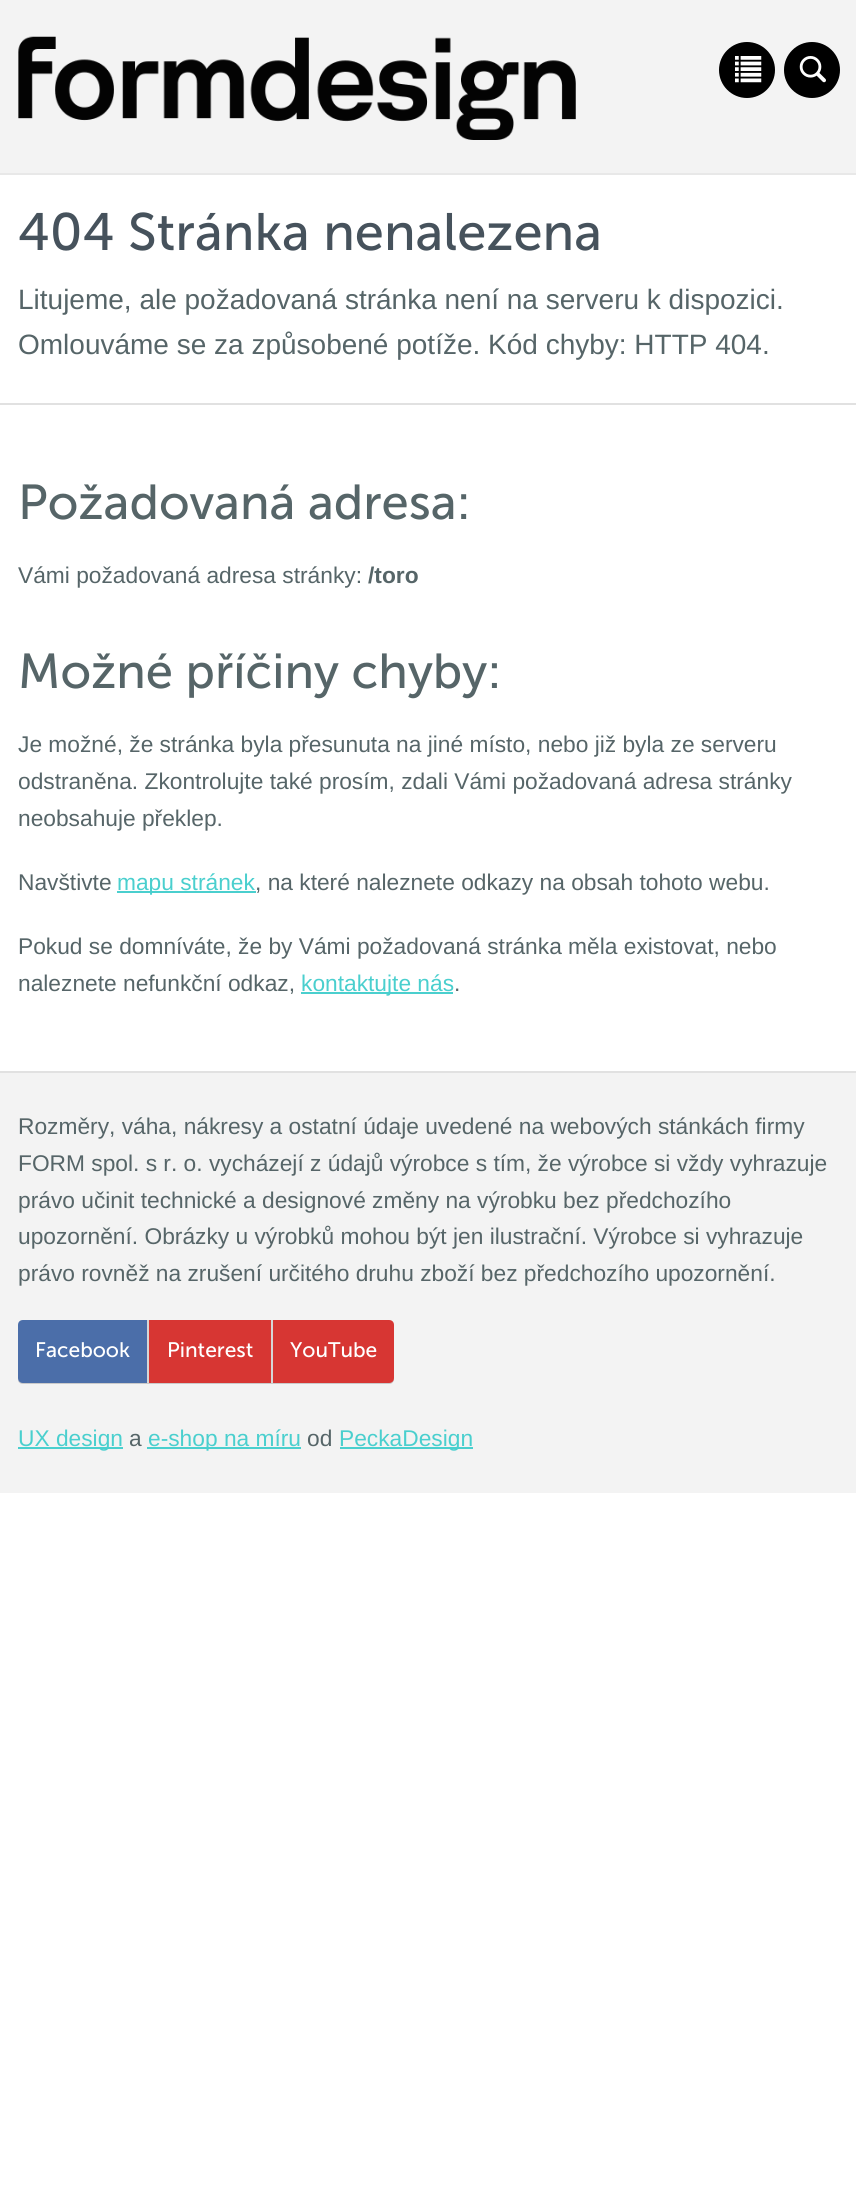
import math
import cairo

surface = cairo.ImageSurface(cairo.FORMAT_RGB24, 856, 2195)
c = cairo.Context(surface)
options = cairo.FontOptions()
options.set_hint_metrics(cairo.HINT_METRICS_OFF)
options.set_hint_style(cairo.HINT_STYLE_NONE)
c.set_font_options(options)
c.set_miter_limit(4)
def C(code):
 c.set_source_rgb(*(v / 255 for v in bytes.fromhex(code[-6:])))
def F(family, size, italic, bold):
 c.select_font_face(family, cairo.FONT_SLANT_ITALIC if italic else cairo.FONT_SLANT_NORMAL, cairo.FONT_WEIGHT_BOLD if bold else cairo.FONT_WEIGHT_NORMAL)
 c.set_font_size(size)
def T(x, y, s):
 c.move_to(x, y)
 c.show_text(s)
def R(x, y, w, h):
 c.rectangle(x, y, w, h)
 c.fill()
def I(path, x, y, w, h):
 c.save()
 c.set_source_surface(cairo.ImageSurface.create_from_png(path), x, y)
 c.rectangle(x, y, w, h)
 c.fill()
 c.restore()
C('ffffff')
c.paint()
C('f3f3f3')
R(0,0,856,173)
C('e8e8e8')
R(0,173,856,2)
I('1.png',18,36,558,104)
C('000000')
c.arc(747,70,28,0,2 * math.pi)
c.fill()
I('2.png',735,56,27,27)
c.arc(812,70,28,0,2 * math.pi)
c.fill()
I('3.png',799,56,27,27)
F('Museo Sans',52.5,0,0)
C('46525c')
T(18,250,'404 Stránka nenalezena')
F('Liberation Sans',28,0,0)
C('566568')
T(18,309,'Litujeme, ale požadovaná stránka není na serveru k dispozici.')
T(18,354,'Omlouváme se za způsobené potíže. Kód chyby: HTTP 404.')
C('e1e1e1')
R(0,403,856,2)
F('Museo Sans',49,0,0)
C('566568')
T(18,519,'Požadovaná adresa:')
F('Liberation Sans',22.75,0,0)
T(18,583,'Vámi požadovaná adresa stránky:')
F('Liberation Sans',22.75,0,1)
T(368,583,'/toro')
F('Museo Sans',49,0,0)
T(18,688,'Možné příčiny chyby:')
F('Liberation Sans',22.75,0,0)
T(18,752,'Je možné, že stránka byla přesunuta na jiné místo, nebo již byla ze serveru')
T(18,789,'odstraněna. Zkontrolujte také prosím, zdali Vámi požadovaná adresa stránky')
T(18,826,'neobsahuje překlep.')
T(18,890,'Navštivte')
C('4acfce')
R(117,891,139,2)
T(117,890,'mapu stránek')
C('566568')
T(255,890,', na které naleznete odkazy na obsah tohoto webu.')
T(18,954,'Pokud se domníváte, že by Vámi požadovaná stránka měla existovat, nebo')
T(18,991,'naleznete nefunkční odkaz,')
C('4acfce')
R(301,992,152,2)
T(301,991,'kontaktujte nás')
C('566568')
T(454,991,'.')
C('f3f3f3')
R(0,1073,856,420)
C('e1e1e1')
R(0,1071,856,2)
C('566568')
T(18,1134,'Rozměry, váha, nákresy a ostatní údaje uvedené na webových stánkách firmy')
T(18,1171,'FORM spol. s r. o. vycházejí z údajů výrobce s tím, že výrobce si vždy vyhrazuje')
T(18,1208,'právo učinit technické a designové změny na výrobku bez předchozího')
T(18,1244,'upozornění. Obrázky u výrobků mohou být jen ilustrační. Výrobce si vyhrazuje')
T(18,1281,'právo rovněž na zrušení určitého druhu zboží bez předchozího upozornění.')
C('cacaca')
c.new_path()
c.move_to(18,1380)
c.curve_to(18,1382,20,1384,23,1384)
c.line_to(389,1384)
c.curve_to(392,1384,394,1382,394,1379)
c.line_to(394,1324)
c.line_to(394,1377)
c.curve_to(394,1380,391,1382,388,1382)
c.line_to(23,1382)
c.curve_to(21,1382,19,1381,18,1380)
c.close_path()
c.fill()
C('4b6ea9')
c.new_path()
c.move_to(23,1320)
c.line_to(147,1320)
c.line_to(147,1383)
c.line_to(23,1383)
c.curve_to(20,1383,18,1381,18,1378)
c.line_to(18,1325)
c.curve_to(18,1322,20,1320,23,1320)
c.close_path()
c.fill()
F('Museo Sans',21,0,0)
C('ffffff')
T(35,1357,'Facebook')
C('d73633')
R(149,1320,122,63)
C('d6d6d6')
R(147,1320,2,63)
C('ffffff')
T(167,1357,'Pinterest')
C('d73633')
c.new_path()
c.move_to(271,1320)
c.line_to(389,1320)
c.curve_to(392,1320,394,1322,394,1325)
c.line_to(394,1378)
c.curve_to(394,1381,392,1383,389,1383)
c.line_to(271,1383)
c.close_path()
c.fill()
C('d6d6d6')
R(271,1320,2,63)
C('ffffff')
T(290,1357,'YouTube')
C('4acfce')
R(18,1447,105,2)
F('Liberation Sans',22.75,0,0)
T(18,1446,'UX design')
C('566568')
T(129,1446,'a')
C('4acfce')
R(147,1447,154,2)
T(148,1446,'e-shop na míru')
C('566568')
T(307,1446,'od')
C('4acfce')
R(340,1447,133,2)
T(339,1446,'PeckaDesign')
surface.write_to_png('o.png')
